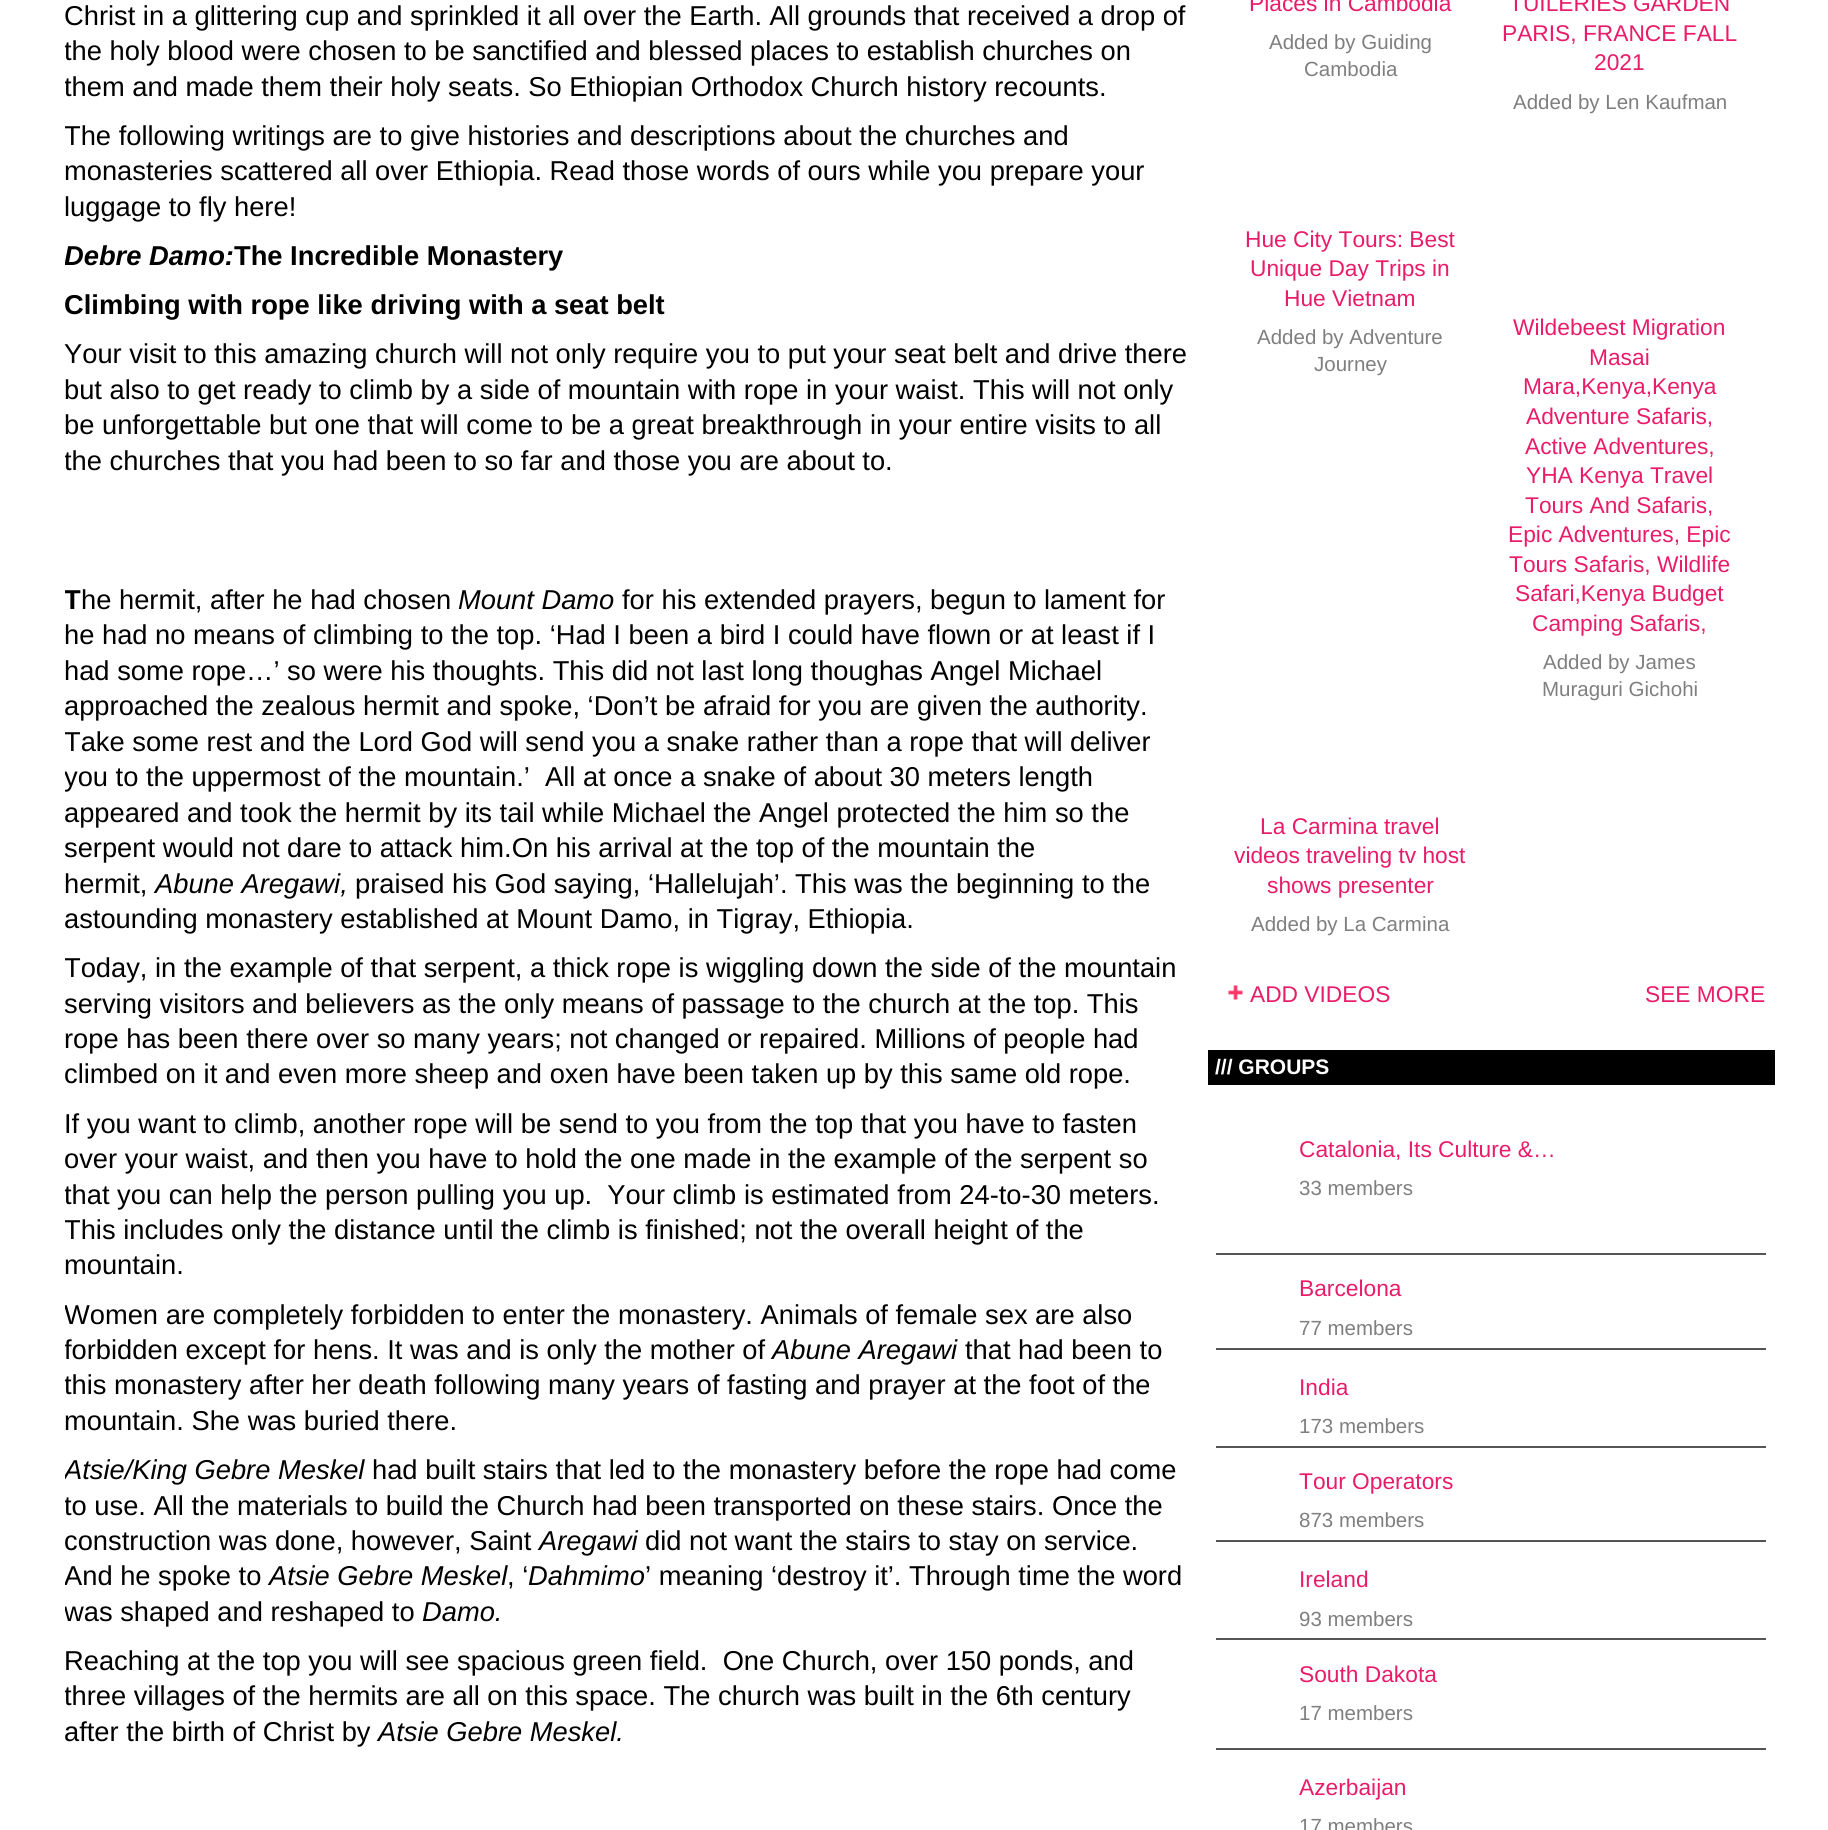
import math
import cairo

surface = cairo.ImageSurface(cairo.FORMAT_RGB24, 1828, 1830)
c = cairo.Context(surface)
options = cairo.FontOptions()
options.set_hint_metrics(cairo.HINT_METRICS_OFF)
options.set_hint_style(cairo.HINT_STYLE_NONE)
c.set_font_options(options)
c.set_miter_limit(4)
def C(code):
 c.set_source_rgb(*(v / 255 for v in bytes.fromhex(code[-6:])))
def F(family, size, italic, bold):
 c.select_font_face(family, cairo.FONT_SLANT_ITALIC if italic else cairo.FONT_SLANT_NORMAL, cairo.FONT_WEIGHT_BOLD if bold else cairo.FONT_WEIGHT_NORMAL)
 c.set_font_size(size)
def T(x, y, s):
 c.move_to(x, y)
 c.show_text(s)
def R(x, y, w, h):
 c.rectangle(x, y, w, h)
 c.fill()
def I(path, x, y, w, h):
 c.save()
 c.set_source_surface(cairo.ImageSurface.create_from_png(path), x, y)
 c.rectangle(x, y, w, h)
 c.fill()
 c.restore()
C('ffffff')
c.paint()
F('Liberation Sans',27.3,0,0)
C('000000')
T(64,25,'Christ in a glittering cup and sprinkled it all over the Earth. All grounds that received a drop of')
c.save()
c.rectangle(65,0,1125,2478)
c.clip()
T(64,60,'the holy blood were chosen to be sanctified and blessed places to establish churches on')
T(64,96,'them and made them their holy seats. So Ethiopian Orthodox Church history recounts.')
T(64,145,'The following writings are to give histories and descriptions about the churches and')
c.restore()
T(64,180,'monasteries scattered all over Ethiopia. Read those words of ours while you prepare your')
T(64,216,'luggage to fly here!')
c.save()
c.rectangle(65,0,1125,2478)
c.clip()
F('Liberation Sans',27.3,1,1)
T(64,265,'Debre Damo:')
c.restore()
F('Liberation Sans',27.3,0,1)
T(234,265,'The Incredible Monastery')
T(64,314,'Climbing with rope like driving with a seat belt')
F('Liberation Sans',27.3,0,0)
T(64,363,'Your visit to this amazing church will not only require you to put your seat belt and drive there')
T(64,399,'but also to get ready to climb by a side of mountain with rope in your waist. This will not only')
T(64,434,'be unforgettable but one that will come to be a great breakthrough in your entire visits to all')
c.save()
c.rectangle(65,0,1125,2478)
c.clip()
T(64,470,'the churches that you had been to so far and those you are about to.')
F('Liberation Sans',27.3,0,1)
T(64,609,'T')
c.restore()
T(81,609,'he hermit, after he had chosen')
F('Liberation Sans',27.3,1,0)
T(458,609,'Mount Damo')
F('Liberation Sans',27.3,0,0)
T(622,609,'for his extended prayers, begun to lament for')
T(64,644,'he had no means of climbing to the top. ‘Had I been a bird I could have flown or at least if I')
T(64,680,'had some rope…’ so were his thoughts. This did not last long thoughas Angel Michael')
T(64,715,'approached the zealous hermit and spoke, ‘Don’t be afraid for you are given the authority.')
c.save()
c.rectangle(65,0,1125,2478)
c.clip()
T(64,751,'Take some rest and the Lord God will send you a snake rather than a rope that will deliver')
T(64,786,'you to the uppermost of the mountain.’  All at once a snake of about 30 meters length')
c.restore()
T(64,822,'appeared and took the hermit by its tail while Michael the Angel protected the him so the')
T(64,857,'serpent would not dare to attack him.On his arrival at the top of the mountain the')
T(64,893,'hermit,')
F('Liberation Sans',27.3,1,0)
T(155,893,'Abune Aregawi,')
F('Liberation Sans',27.3,0,0)
T(355,893,'praised his God saying, ‘Hallelujah’. This was the beginning to the')
T(64,928,'astounding monastery established at Mount Damo, in Tigray, Ethiopia.')
c.save()
c.rectangle(65,0,1125,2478)
c.clip()
T(64,977,'Today, in the example of that serpent, a thick rope is wiggling down the side of the mountain')
c.restore()
T(64,1013,'serving visitors and believers as the only means of passage to the church at the top. This')
T(64,1048,'rope has been there over so many years; not changed or repaired. Millions of people had')
T(64,1083,'climbed on it and even more sheep and oxen have been taken up by this same old rope.')
T(64,1133,'If you want to climb, another rope will be send to you from the top that you have to fasten')
T(64,1168,'over your waist, and then you have to hold the one made in the example of the serpent so')
c.save()
c.rectangle(65,0,1125,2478)
c.clip()
T(64,1204,'that you can help the person pulling you up.  Your climb is estimated from 24-to-30 meters.')
T(64,1239,'This includes only the distance until the climb is finished; not the overall height of the')
c.restore()
T(64,1274,'mountain.')
c.save()
c.rectangle(65,0,1125,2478)
c.clip()
T(64,1324,'Women are completely forbidden to enter the monastery. Animals of female sex are also')
T(64,1359,'forbidden except for hens. It was and is only the mother of')
c.restore()
F('Liberation Sans',27.3,1,0)
T(772,1359,'Abune Aregawi')
F('Liberation Sans',27.3,0,0)
T(965,1359,'that had been to')
c.save()
c.rectangle(65,0,1125,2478)
c.clip()
T(64,1394,'this monastery after her death following many years of fasting and prayer at the foot of the')
c.restore()
T(64,1430,'mountain. She was buried there.')
c.save()
c.rectangle(65,0,1125,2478)
c.clip()
F('Liberation Sans',27.3,1,0)
T(64,1479,'Atsie/King Gebre Meskel')
c.restore()
T(372,1479,'had built stairs that led to the monastery before the rope had come')
c.save()
c.rectangle(65,0,1125,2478)
c.clip()
T(64,1515,'to use. All the materials to build the Church had been transported on these stairs. Once the')
c.restore()
T(64,1550,'construction was done, however, Saint')
F('Liberation Sans',27.3,1,0)
T(539,1550,'Aregawi')
F('Liberation Sans',27.3,0,0)
T(645,1550,'did not want the stairs to stay on service.')
c.save()
c.rectangle(65,0,1125,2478)
c.clip()
T(64,1585,'And he spoke to')
c.restore()
F('Liberation Sans',27.3,1,0)
T(269,1585,'Atsie Gebre Meskel')
F('Liberation Sans',27.3,0,0)
T(507,1585,', ‘')
F('Liberation Sans',27.3,1,0)
T(528,1585,'Dahmimo')
F('Liberation Sans',27.3,0,0)
T(645,1585,'’ meaning ‘destroy it’. Through time the word')
c.save()
c.rectangle(65,0,1125,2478)
c.clip()
T(64,1621,'was shaped and reshaped to')
c.restore()
F('Liberation Sans',27.3,1,0)
T(422,1621,'Damo.')
F('Liberation Sans',27.3,0,0)
T(64,1670,'Reaching at the top you will see spacious green field.  One Church, over 150 ponds, and')
c.save()
c.rectangle(65,0,1125,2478)
c.clip()
T(64,1705,'three villages of the hermits are all on this space. The church was built in the 6th century')
c.restore()
T(64,1741,'after the birth of Christ by')
F('Liberation Sans',27.3,1,0)
T(378,1741,'Atsie Gebre Meskel.')
F('Liberation Sans',22.75,0,0)
C('e91c6a')
T(1249,11,'Places in Cambodia')
F('Liberation Sans',20.5,0,0)
C('7f7f7f')
T(1269,49,'Added by Guiding')
T(1304,76,'Cambodia')
F('Liberation Sans',22.75,0,0)
C('e91c6a')
T(1509,11,'TUILERIES GARDEN')
T(1502,41,'PARIS, FRANCE FALL')
T(1594,70,'2021')
F('Liberation Sans',20.5,0,0)
C('7f7f7f')
T(1513,109,'Added by Len Kaufman')
F('Liberation Sans',22.75,0,0)
C('e91c6a')
T(1245,247,'Hue City Tours: Best')
T(1250,276,'Unique Day Trips in')
T(1284,306,'Hue Vietnam')
F('Liberation Sans',20.5,0,0)
C('7f7f7f')
T(1257,344,'Added by Adventure')
T(1314,371,'Journey')
F('Liberation Sans',22.75,0,0)
C('e91c6a')
T(1513,335,'Wildebeest Migration')
T(1589,365,'Masai')
T(1523,394,'Mara,Kenya,Kenya')
T(1526,424,'Adventure Safaris,')
T(1525,454,'Active Adventures,')
T(1526,483,'YHA Kenya Travel')
T(1525,513,'Tours And Safaris,')
T(1508,542,'Epic Adventures, Epic')
T(1509,572,'Tours Safaris, Wildlife')
T(1515,601,'Safari,Kenya Budget')
T(1532,631,'Camping Safaris,')
F('Liberation Sans',20.5,0,0)
C('7f7f7f')
T(1543,669,'Added by James')
T(1542,696,'Muraguri Gichohi')
F('Liberation Sans',22.75,0,0)
C('e91c6a')
T(1260,834,'La Carmina travel')
T(1234,863,'videos traveling tv host')
T(1267,893,'shows presenter')
F('Liberation Sans',20.5,0,0)
C('7f7f7f')
T(1251,931,'Added by La Carmina')
I('1.png',1228,985,15,15)
F('Liberation Sans',22.75,0,0)
C('e91c6a')
T(1250,1002,'ADD VIDEOS')
T(1645,1002,'SEE MORE')
C('000000')
R(1208,1050,567,35)
F('Liberation Sans',21,0,1)
C('ffffff')
T(1215,1074,'/// GROUPS')
C('555555')
R(1216,1253,550,2)
F('Liberation Sans',22.75,0,0)
C('e91c6a')
T(1299,1157,'Catalonia, Its Culture &…')
F('Liberation Sans',20.5,0,0)
C('7f7f7f')
T(1299,1195,'33 members')
C('555555')
R(1216,1348,550,2)
F('Liberation Sans',22.75,0,0)
C('e91c6a')
T(1299,1296,'Barcelona')
F('Liberation Sans',20.5,0,0)
C('7f7f7f')
T(1299,1335,'77 members')
C('555555')
R(1216,1446,550,2)
F('Liberation Sans',22.75,0,0)
C('e91c6a')
T(1299,1395,'India')
F('Liberation Sans',20.5,0,0)
C('7f7f7f')
T(1299,1433,'173 members')
C('555555')
R(1216,1540,550,2)
F('Liberation Sans',22.75,0,0)
C('e91c6a')
T(1299,1489,'Tour Operators')
F('Liberation Sans',20.5,0,0)
C('7f7f7f')
T(1299,1527,'873 members')
C('555555')
R(1216,1638,550,2)
F('Liberation Sans',22.75,0,0)
C('e91c6a')
T(1299,1587,'Ireland')
F('Liberation Sans',20.5,0,0)
C('7f7f7f')
T(1299,1626,'93 members')
C('555555')
R(1216,1748,550,2)
F('Liberation Sans',22.75,0,0)
C('e91c6a')
T(1299,1682,'South Dakota')
F('Liberation Sans',20.5,0,0)
C('7f7f7f')
T(1299,1720,'17 members')
F('Liberation Sans',22.75,0,0)
C('e91c6a')
T(1299,1795,'Azerbaijan')
F('Liberation Sans',20.5,0,0)
C('7f7f7f')
T(1299,1833,'17 members')
surface.write_to_png('o.png')
